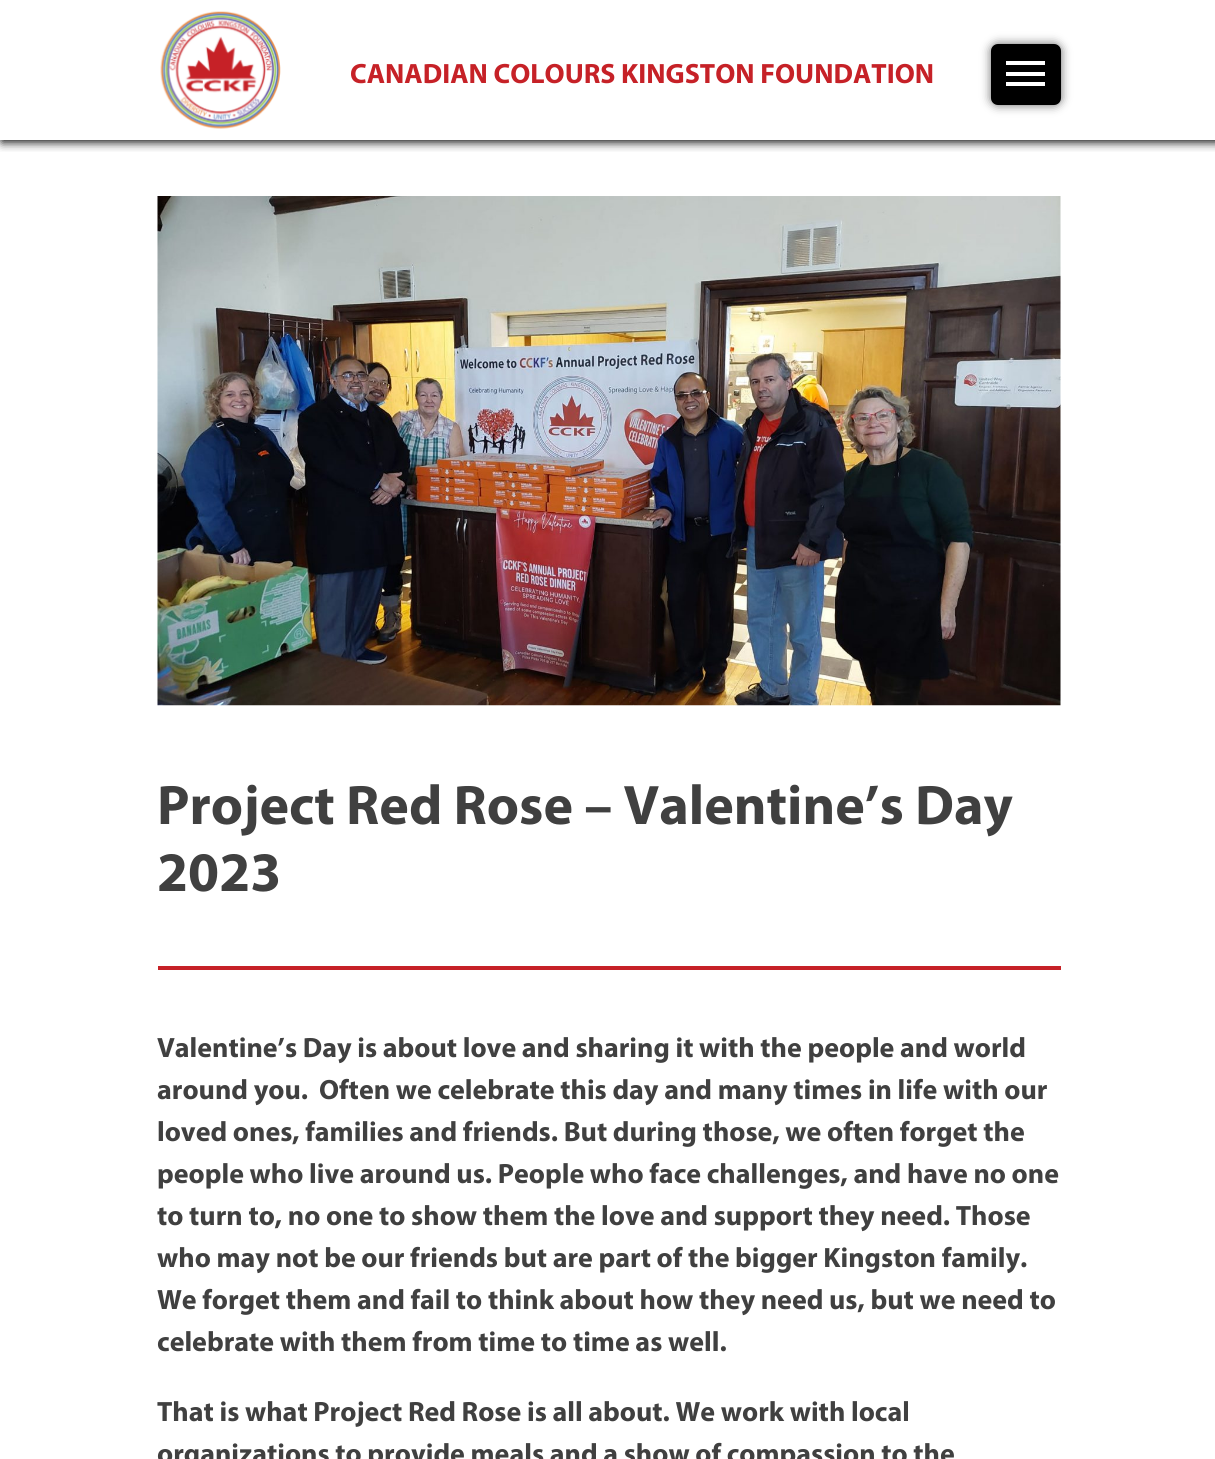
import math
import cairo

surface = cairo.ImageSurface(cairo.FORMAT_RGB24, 1215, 1459)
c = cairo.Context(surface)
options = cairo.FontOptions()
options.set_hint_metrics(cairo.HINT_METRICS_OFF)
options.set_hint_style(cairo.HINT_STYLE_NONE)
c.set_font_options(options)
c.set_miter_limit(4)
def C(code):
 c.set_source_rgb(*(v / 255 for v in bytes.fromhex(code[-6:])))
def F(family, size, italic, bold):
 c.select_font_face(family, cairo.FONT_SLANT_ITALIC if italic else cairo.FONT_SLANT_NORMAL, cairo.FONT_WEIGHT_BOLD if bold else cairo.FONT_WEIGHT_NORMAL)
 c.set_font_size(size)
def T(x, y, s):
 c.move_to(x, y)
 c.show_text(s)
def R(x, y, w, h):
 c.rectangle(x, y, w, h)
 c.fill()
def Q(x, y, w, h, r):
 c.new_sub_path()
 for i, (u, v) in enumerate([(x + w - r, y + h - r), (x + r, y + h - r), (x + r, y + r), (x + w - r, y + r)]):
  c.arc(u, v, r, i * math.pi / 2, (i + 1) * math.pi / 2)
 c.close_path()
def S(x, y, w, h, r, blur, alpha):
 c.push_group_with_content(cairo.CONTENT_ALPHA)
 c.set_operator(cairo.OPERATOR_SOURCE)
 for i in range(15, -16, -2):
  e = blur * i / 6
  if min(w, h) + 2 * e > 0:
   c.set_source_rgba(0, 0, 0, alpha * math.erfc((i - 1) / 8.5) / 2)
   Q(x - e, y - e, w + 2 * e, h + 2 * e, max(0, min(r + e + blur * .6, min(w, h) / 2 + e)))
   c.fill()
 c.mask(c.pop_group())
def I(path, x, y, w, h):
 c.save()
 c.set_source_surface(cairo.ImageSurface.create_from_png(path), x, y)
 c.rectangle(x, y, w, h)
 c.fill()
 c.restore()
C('ffffff')
c.paint()
c.save()
c.rectangle(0,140,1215,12)
c.clip()
C('000000')
S(2,2,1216,140,0,5,1)
c.restore()
I('1.png',160,11,121,118)
F('Myriad',28,0,1)
C('c62127')
T(350,83,'CANADIAN COLOURS KINGSTON FOUNDATION')
C('666666')
S(991,44,70,61,7,5,1)
C('000000')
Q(991,44,70,61,7)
c.fill()
C('ffffff')
R(1006,61,39,4)
R(1006,72,39,4)
R(1006,82,39,4)
I('2.png',157,196,904,510)
F('Myriad',56,0,1)
C('404040')
T(157,824,'Project Red Rose – Valentine’s Day')
T(157,891,'2023')
C('c62127')
R(158,966,903,4)
F('Myriad',28,0,1)
C('404040')
T(157,1057,'Valentine’s Day is about love and sharing it with the people and world')
T(157,1099,'around you.')
T(319,1099,'Often we celebrate this day and many times in life with our')
T(157,1141,'loved ones, families and friends. But during those, we often forget the')
T(157,1183,'people who live around us. People who face challenges, and have no one')
T(157,1225,'to turn to, no one to show them the love and support they need. Those')
T(157,1267,'who may not be our friends but are part of the bigger Kingston family.')
T(157,1309,'We forget them and fail to think about how they need us, but we need to')
T(157,1351,'celebrate with them from time to time as well.')
T(157,1421,'That is what Project Red Rose is all about. We work with local')
T(157,1463,'organizations to provide meals and a show of compassion to the')
surface.write_to_png('o.png')
